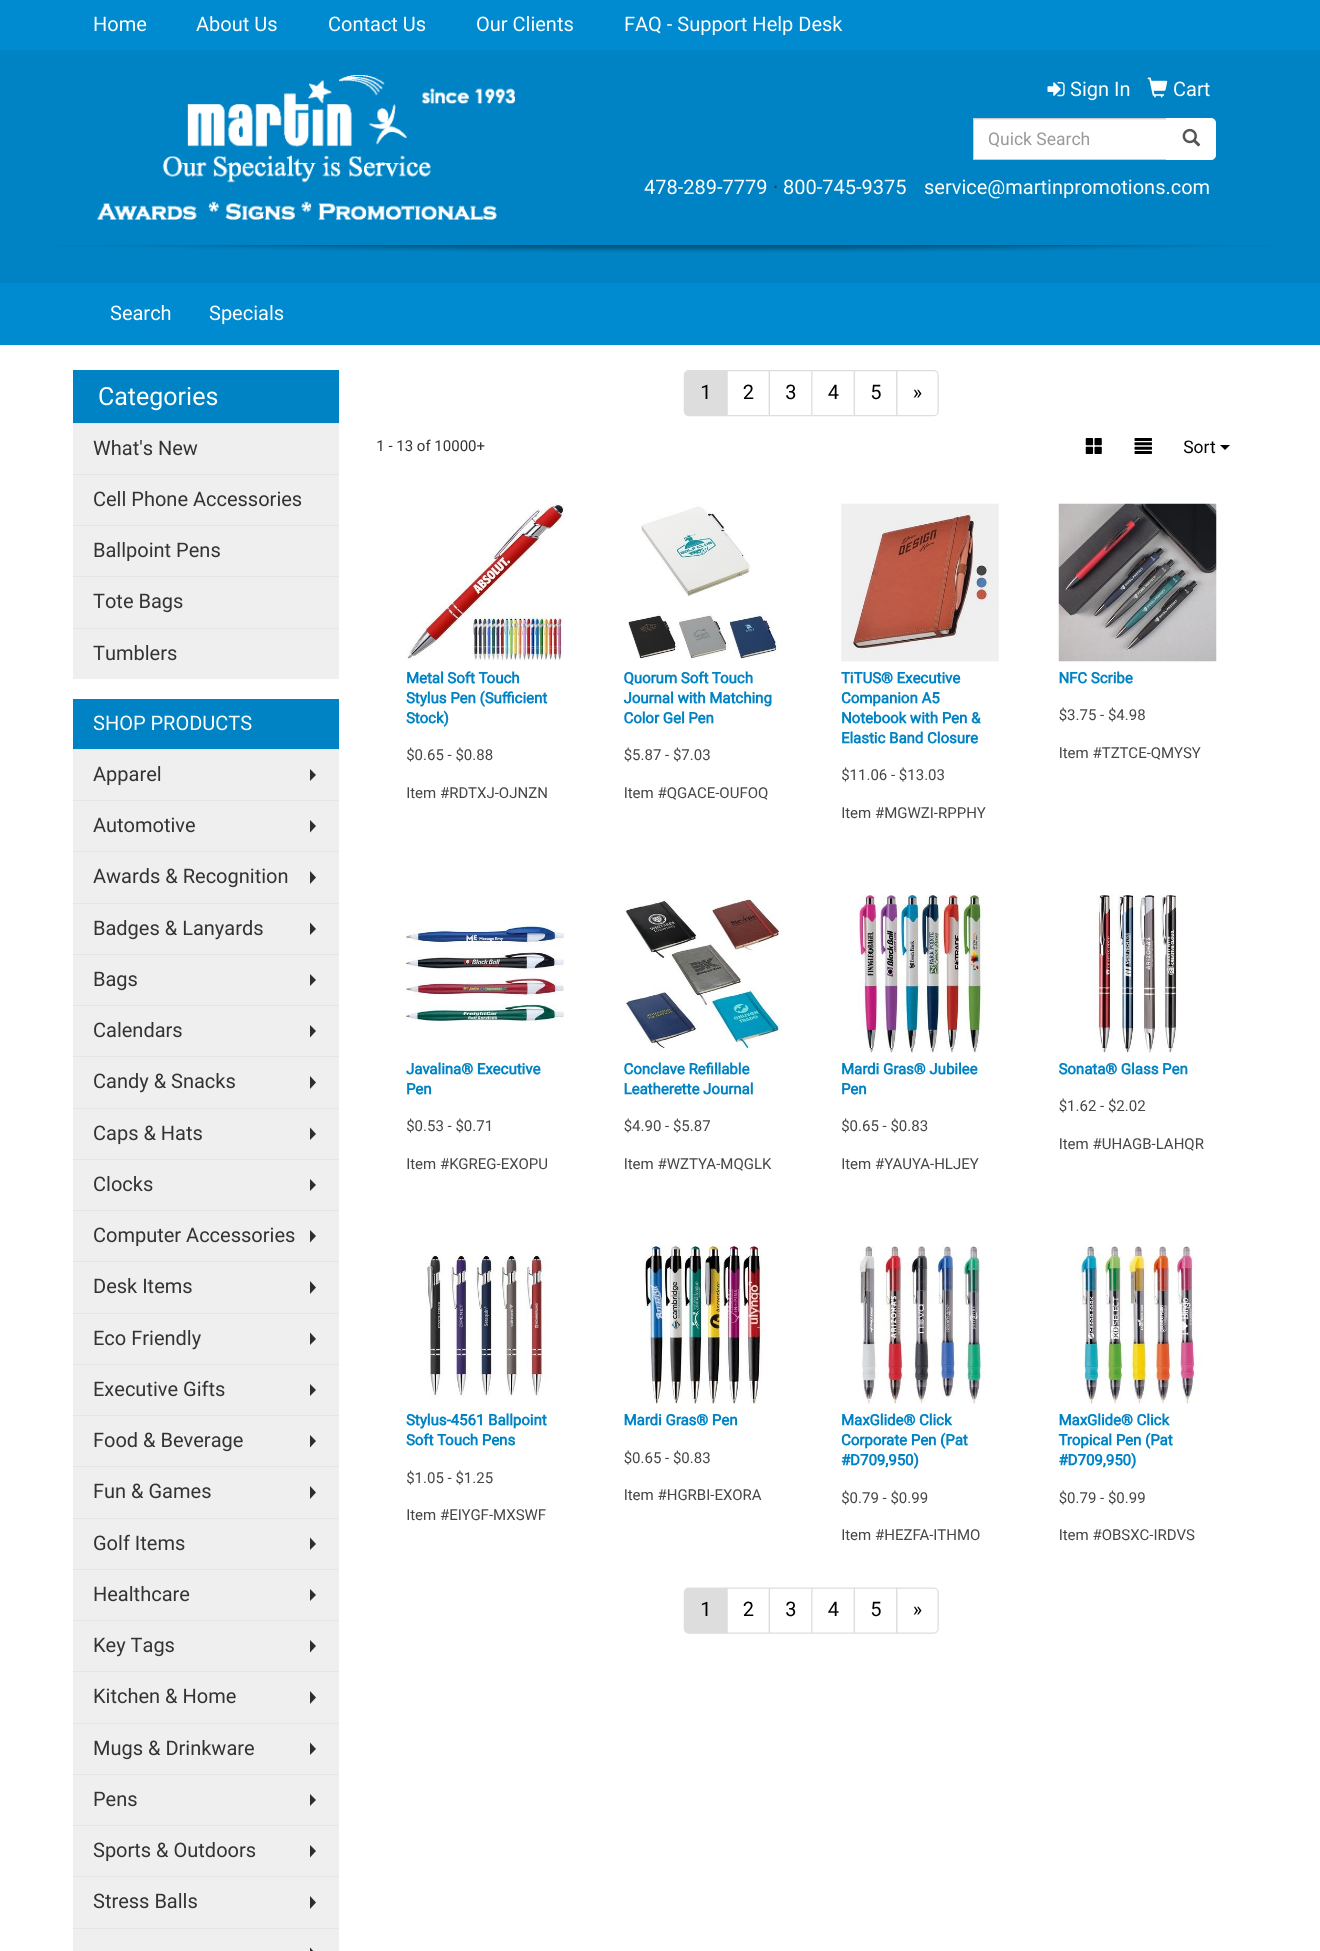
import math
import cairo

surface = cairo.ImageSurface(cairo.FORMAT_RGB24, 1320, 1951)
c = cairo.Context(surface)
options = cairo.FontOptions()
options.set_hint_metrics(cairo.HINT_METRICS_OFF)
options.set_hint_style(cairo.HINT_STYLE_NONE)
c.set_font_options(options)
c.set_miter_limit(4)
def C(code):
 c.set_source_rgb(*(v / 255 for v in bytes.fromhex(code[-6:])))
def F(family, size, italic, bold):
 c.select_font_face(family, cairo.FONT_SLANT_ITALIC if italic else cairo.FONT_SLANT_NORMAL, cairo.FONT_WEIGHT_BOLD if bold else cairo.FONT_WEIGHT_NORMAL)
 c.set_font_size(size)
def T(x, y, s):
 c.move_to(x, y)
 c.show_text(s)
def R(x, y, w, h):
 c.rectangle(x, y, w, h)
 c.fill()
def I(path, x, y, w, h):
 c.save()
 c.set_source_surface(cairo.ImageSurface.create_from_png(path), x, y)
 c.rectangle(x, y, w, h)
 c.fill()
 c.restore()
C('0083c4')
c.paint()
C('008acf')
R(0,0,1320,50)
F('Roboto',20,0,0)
C('ffffff')
T(93,31,'Home')
T(196,31,'About Us')
T(328,31,'Contact Us')
T(476,31,'Our Clients')
T(624,31,'FAQ - Support Help Desk')
I('1.png',97,75,418,145)
I('2.png',1047,81,18,16)
T(1070,96,'Sign In')
I('3.png',1147,77,21,21)
T(1173,96,'Cart')
R(974,120,192,39)
C('ececec')
R(974,119,192,1)
c.rectangle(973.5,118.5,194,41)
C('cccccc')
c.set_line_width(1)
c.stroke()
F('Roboto',17.5,0,0)
C('999999')
T(988,145,'Quick Search')
C('ffffff')
c.new_path()
c.move_to(1166.5,118.5)
c.line_to(1211,118.5)
c.curve_to(1213.5,118.5,1215.5,120.5,1215.5,123)
c.line_to(1215.5,155)
c.curve_to(1215.5,157.5,1213.5,159.5,1211,159.5)
c.line_to(1166.5,159.5)
c.close_path()
c.fill_preserve()
c.stroke()
I('4.png',1182,128,19,19)
F('Roboto',20,0,0)
T(644,194,'478-289-7779')
C('333333')
T(773,194,'·')
C('ffffff')
T(783,194,'800-745-9375')
T(924,194,'service@martinpromotions.com')
I('5.png',57,245,1214,8)
C('008acf')
R(0,283,1320,62)
C('ffffff')
T(110,320,'Search')
T(209,320,'Specials')
R(0,345,1320,1606)
C('0083c4')
R(73,370,266,53)
F('Roboto',25,0,0)
C('ffffff')
T(98,405,'Categories')
C('efefef')
R(73,424,266,50)
C('e5e5e5')
R(73,423,266,1)
F('Roboto',20,0,0)
C('333333')
T(93,455,'What\'s New')
C('efefef')
R(73,475,266,50)
C('e5e5e5')
R(73,474,266,1)
C('333333')
T(93,506,'Cell Phone Accessories')
C('efefef')
R(73,526,266,50)
C('e5e5e5')
R(73,525,266,1)
C('333333')
T(93,557,'Ballpoint Pens')
C('efefef')
R(73,577,266,51)
C('e5e5e5')
R(73,576,266,1)
C('333333')
T(93,608,'Tote Bags')
C('efefef')
R(73,629,266,50)
C('e5e5e5')
R(73,628,266,1)
C('333333')
T(93,660,'Tumblers')
C('0083c4')
R(73,699,266,50)
C('ffffff')
T(93,730,'SHOP PRODUCTS')
C('efefef')
R(73,750,266,50)
C('e5e5e5')
R(73,749,266,1)
C('333333')
T(93,781,'Apparel')
C('2e2e2e')
c.new_path()
c.move_to(310,781)
c.line_to(310,769)
c.line_to(316,775)
c.close_path()
c.fill()
C('efefef')
R(73,801,266,50)
C('e5e5e5')
R(73,800,266,1)
C('333333')
T(93,832,'Automotive')
C('2e2e2e')
c.new_path()
c.move_to(310,832.5)
c.line_to(310,820)
c.line_to(316,826)
c.close_path()
c.fill()
C('efefef')
R(73,852,266,51)
C('e5e5e5')
R(73,851,266,1)
C('333333')
T(93,883,'Awards & Recognition')
C('2e2e2e')
c.new_path()
c.move_to(310,884)
c.line_to(310,871)
c.line_to(316,877.5)
c.close_path()
c.fill()
C('efefef')
R(73,904,266,50)
C('e5e5e5')
R(73,903,266,1)
C('333333')
T(93,935,'Badges & Lanyards')
C('2e2e2e')
c.new_path()
c.move_to(310,935)
c.line_to(310,922.5)
c.line_to(316,929)
c.close_path()
c.fill()
C('efefef')
R(73,955,266,50)
C('e5e5e5')
R(73,954,266,1)
C('333333')
T(93,986,'Bags')
C('2e2e2e')
c.new_path()
c.move_to(310,986)
c.line_to(310,974)
c.line_to(316,980)
c.close_path()
c.fill()
C('efefef')
R(73,1006,266,50)
C('e5e5e5')
R(73,1005,266,1)
C('333333')
T(93,1037,'Calendars')
C('2e2e2e')
c.new_path()
c.move_to(310,1037.5)
c.line_to(310,1025)
c.line_to(316,1031)
c.close_path()
c.fill()
C('efefef')
R(73,1057,266,51)
C('e5e5e5')
R(73,1056,266,1)
C('333333')
T(93,1088,'Candy & Snacks')
C('2e2e2e')
c.new_path()
c.move_to(310,1089)
c.line_to(310,1076)
c.line_to(316,1082.5)
c.close_path()
c.fill()
C('efefef')
R(73,1109,266,50)
C('e5e5e5')
R(73,1108,266,1)
C('333333')
T(93,1140,'Caps & Hats')
C('2e2e2e')
c.new_path()
c.move_to(310,1140)
c.line_to(310,1127.5)
c.line_to(316,1134)
c.close_path()
c.fill()
C('efefef')
R(73,1160,266,50)
C('e5e5e5')
R(73,1159,266,1)
C('333333')
T(93,1191,'Clocks')
C('2e2e2e')
c.new_path()
c.move_to(310,1191)
c.line_to(310,1179)
c.line_to(316,1185)
c.close_path()
c.fill()
C('efefef')
R(73,1211,266,50)
C('e5e5e5')
R(73,1210,266,1)
C('333333')
T(93,1242,'Computer Accessories')
C('2e2e2e')
c.new_path()
c.move_to(310,1242.5)
c.line_to(310,1230)
c.line_to(316,1236)
c.close_path()
c.fill()
C('efefef')
R(73,1262,266,51)
C('e5e5e5')
R(73,1261,266,1)
C('333333')
T(93,1293,'Desk Items')
C('2e2e2e')
c.new_path()
c.move_to(310,1294)
c.line_to(310,1281)
c.line_to(316,1287.5)
c.close_path()
c.fill()
C('efefef')
R(73,1314,266,50)
C('e5e5e5')
R(73,1313,266,1)
C('333333')
T(93,1345,'Eco Friendly')
C('2e2e2e')
c.new_path()
c.move_to(310,1345)
c.line_to(310,1332.5)
c.line_to(316,1339)
c.close_path()
c.fill()
C('efefef')
R(73,1365,266,50)
C('e5e5e5')
R(73,1364,266,1)
C('333333')
T(93,1396,'Executive Gifts')
C('2e2e2e')
c.new_path()
c.move_to(310,1396)
c.line_to(310,1384)
c.line_to(316,1390)
c.close_path()
c.fill()
C('efefef')
R(73,1416,266,50)
C('e5e5e5')
R(73,1415,266,1)
C('333333')
T(93,1447,'Food & Beverage')
C('2e2e2e')
c.new_path()
c.move_to(310,1447.5)
c.line_to(310,1435)
c.line_to(316,1441)
c.close_path()
c.fill()
C('efefef')
R(73,1467,266,51)
C('e5e5e5')
R(73,1466,266,1)
C('333333')
T(93,1498,'Fun & Games')
C('2e2e2e')
c.new_path()
c.move_to(310,1499)
c.line_to(310,1486)
c.line_to(316,1492.5)
c.close_path()
c.fill()
C('efefef')
R(73,1519,266,50)
C('e5e5e5')
R(73,1518,266,1)
C('333333')
T(93,1550,'Golf Items')
C('2e2e2e')
c.new_path()
c.move_to(310,1550)
c.line_to(310,1537.5)
c.line_to(316,1544)
c.close_path()
c.fill()
C('efefef')
R(73,1570,266,50)
C('e5e5e5')
R(73,1569,266,1)
C('333333')
T(93,1601,'Healthcare')
C('2e2e2e')
c.new_path()
c.move_to(310,1601)
c.line_to(310,1589)
c.line_to(316,1595)
c.close_path()
c.fill()
C('efefef')
R(73,1621,266,50)
C('e5e5e5')
R(73,1620,266,1)
C('333333')
T(93,1652,'Key Tags')
C('2e2e2e')
c.new_path()
c.move_to(310,1652.5)
c.line_to(310,1640)
c.line_to(316,1646)
c.close_path()
c.fill()
C('efefef')
R(73,1672,266,51)
C('e5e5e5')
R(73,1671,266,1)
C('333333')
T(93,1703,'Kitchen & Home')
C('2e2e2e')
c.new_path()
c.move_to(310,1704)
c.line_to(310,1691)
c.line_to(316,1697.5)
c.close_path()
c.fill()
C('efefef')
R(73,1724,266,50)
C('e5e5e5')
R(73,1723,266,1)
C('333333')
T(93,1755,'Mugs & Drinkware')
C('2e2e2e')
c.new_path()
c.move_to(310,1755)
c.line_to(310,1742.5)
c.line_to(316,1749)
c.close_path()
c.fill()
C('efefef')
R(73,1775,266,50)
C('e5e5e5')
R(73,1774,266,1)
C('333333')
T(93,1806,'Pens')
C('2e2e2e')
c.new_path()
c.move_to(310,1806)
c.line_to(310,1794)
c.line_to(316,1800)
c.close_path()
c.fill()
C('efefef')
R(73,1826,266,50)
C('e5e5e5')
R(73,1825,266,1)
C('333333')
T(93,1857,'Sports & Outdoors')
C('2e2e2e')
c.new_path()
c.move_to(310,1857.5)
c.line_to(310,1845)
c.line_to(316,1851)
c.close_path()
c.fill()
C('efefef')
R(73,1877,266,51)
C('e5e5e5')
R(73,1876,266,1)
C('333333')
T(93,1908,'Stress Balls')
C('2e2e2e')
c.new_path()
c.move_to(310,1909)
c.line_to(310,1896)
c.line_to(316,1902.5)
c.close_path()
c.fill()
C('efefef')
R(73,1929,266,22)
C('e5e5e5')
R(73,1928,266,1)
C('2e2e2e')
c.new_path()
c.move_to(310,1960)
c.line_to(310,1947.5)
c.line_to(316,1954)
c.close_path()
c.fill()
I('6.png',377,370,853,1264)
surface.write_to_png('o.png')
